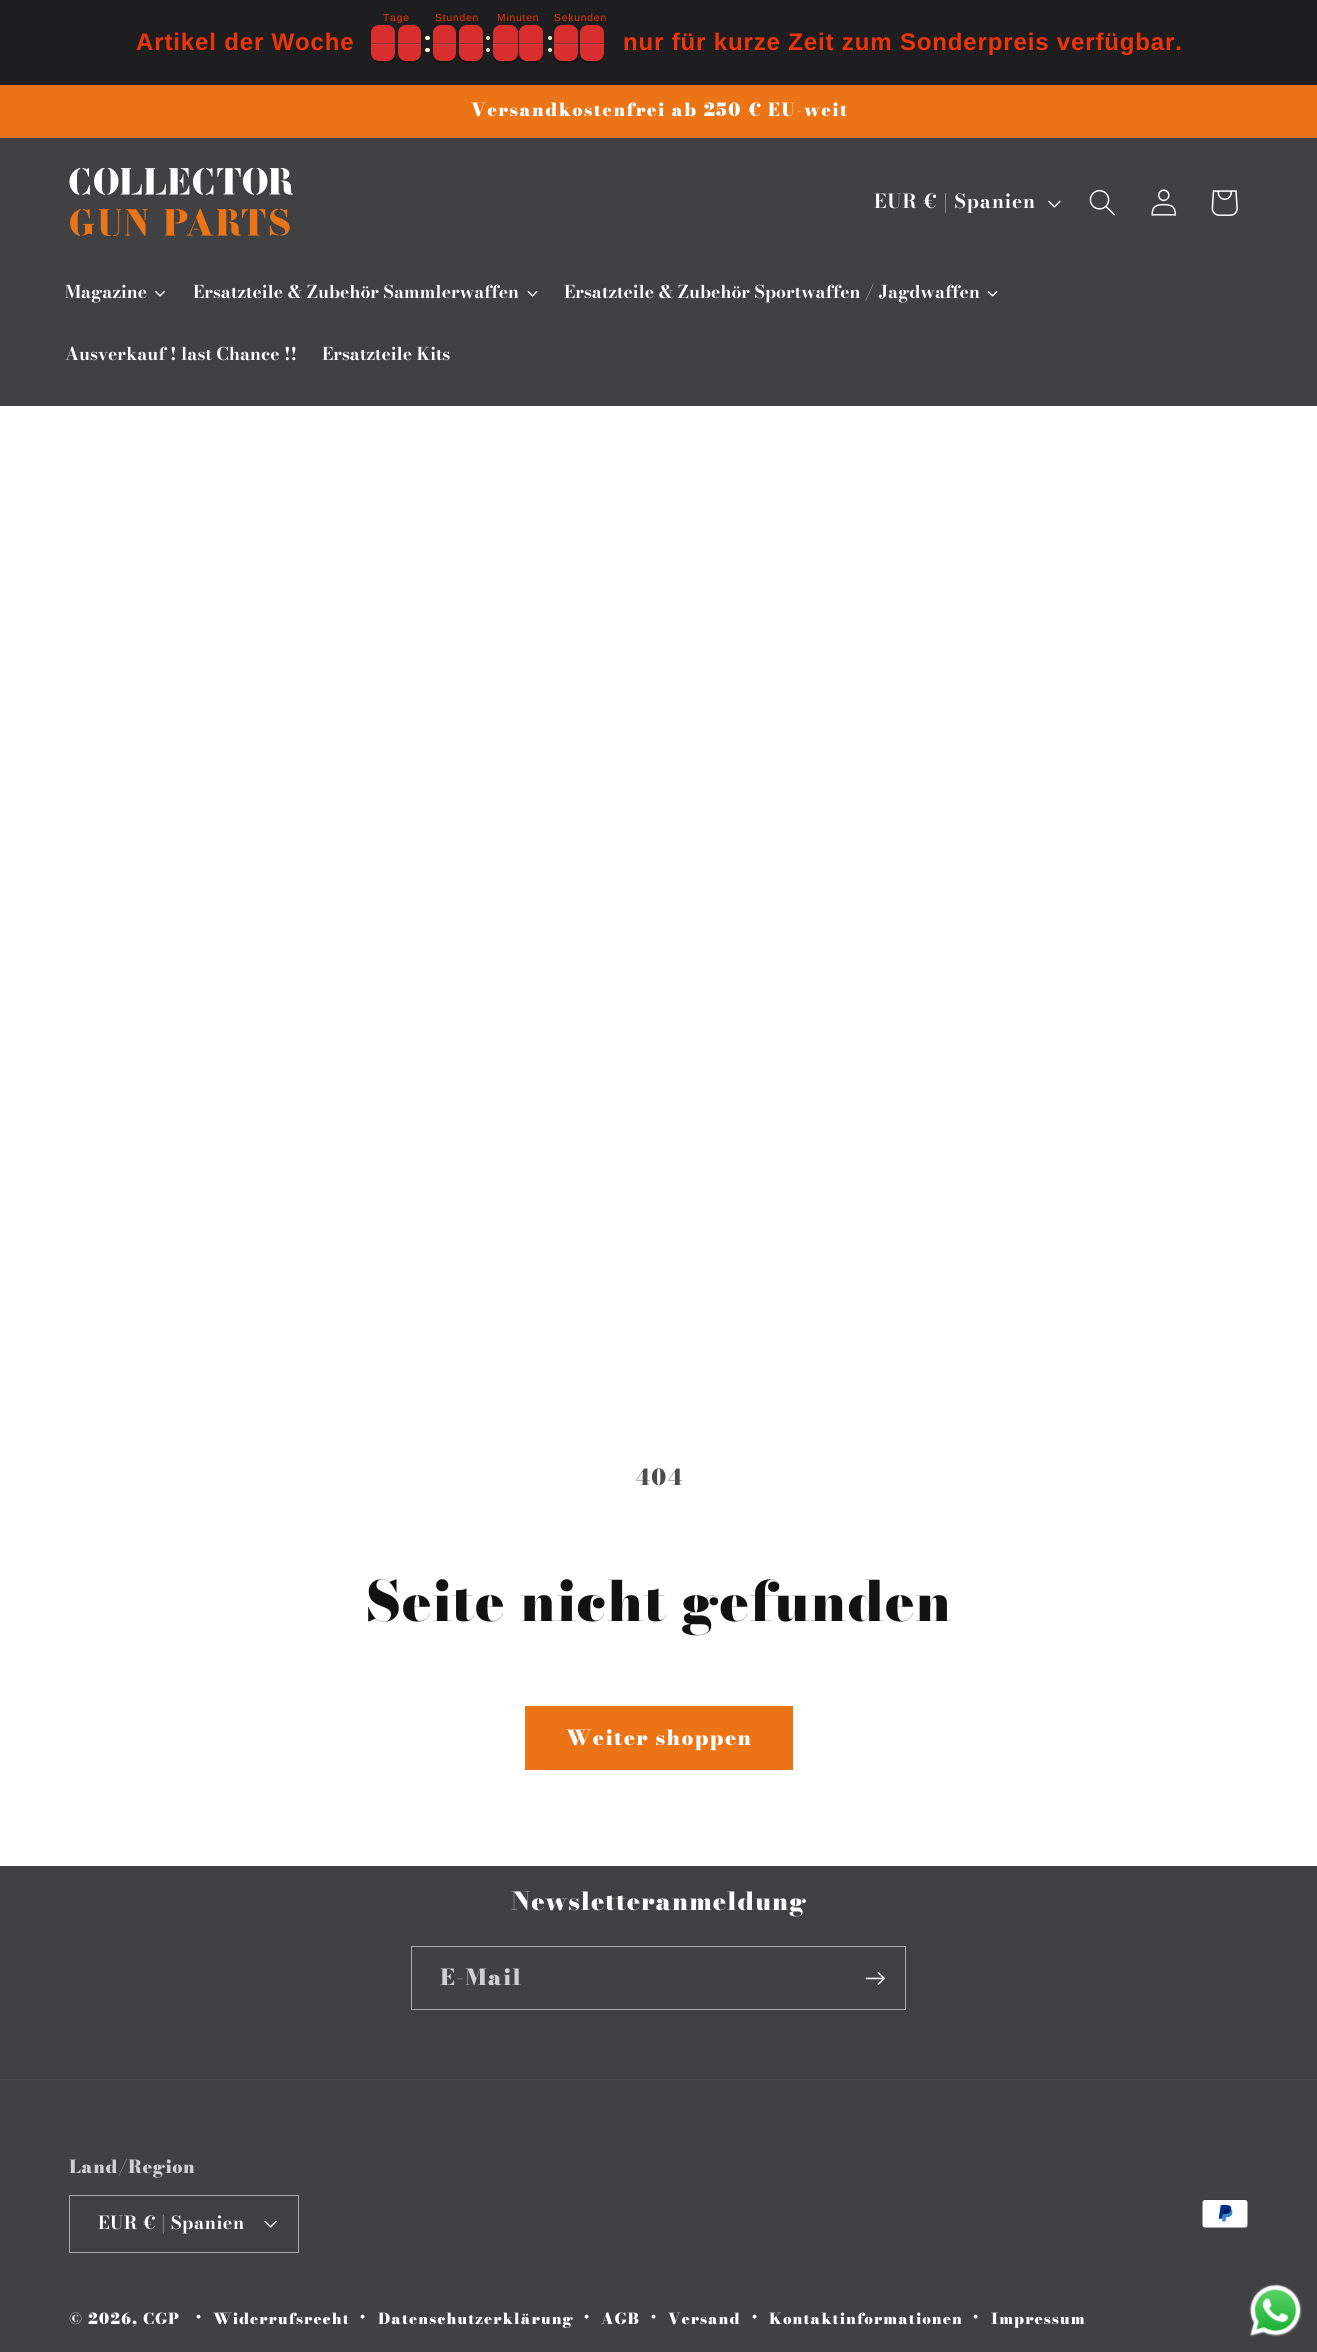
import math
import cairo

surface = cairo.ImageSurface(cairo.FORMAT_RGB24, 1317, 2352)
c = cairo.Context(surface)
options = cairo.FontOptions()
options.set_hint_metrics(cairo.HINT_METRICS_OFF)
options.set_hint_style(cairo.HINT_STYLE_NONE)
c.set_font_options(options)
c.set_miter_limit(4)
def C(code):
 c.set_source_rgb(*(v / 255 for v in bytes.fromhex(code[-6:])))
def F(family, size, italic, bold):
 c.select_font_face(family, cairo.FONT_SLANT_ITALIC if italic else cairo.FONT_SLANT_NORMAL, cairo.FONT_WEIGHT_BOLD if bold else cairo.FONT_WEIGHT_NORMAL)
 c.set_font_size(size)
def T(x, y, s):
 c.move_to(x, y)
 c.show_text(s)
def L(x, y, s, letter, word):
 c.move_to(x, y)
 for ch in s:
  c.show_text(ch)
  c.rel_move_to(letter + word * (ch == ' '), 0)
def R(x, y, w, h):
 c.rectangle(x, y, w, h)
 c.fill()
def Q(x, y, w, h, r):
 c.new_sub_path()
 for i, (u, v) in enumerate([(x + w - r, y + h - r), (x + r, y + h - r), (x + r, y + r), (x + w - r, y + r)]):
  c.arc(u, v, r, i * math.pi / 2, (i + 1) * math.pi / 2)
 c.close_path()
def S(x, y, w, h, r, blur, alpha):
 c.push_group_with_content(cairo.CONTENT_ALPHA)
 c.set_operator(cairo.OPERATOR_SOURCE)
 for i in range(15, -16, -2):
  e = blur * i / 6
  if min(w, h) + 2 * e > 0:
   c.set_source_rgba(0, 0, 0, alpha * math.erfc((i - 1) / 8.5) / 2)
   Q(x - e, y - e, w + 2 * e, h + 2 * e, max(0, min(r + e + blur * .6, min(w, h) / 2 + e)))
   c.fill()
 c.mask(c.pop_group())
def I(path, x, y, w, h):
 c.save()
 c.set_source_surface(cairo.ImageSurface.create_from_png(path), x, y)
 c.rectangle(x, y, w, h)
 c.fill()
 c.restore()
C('ffffff')
c.paint()
C('1e1e20')
R(0,0,1317,85)
F('Liberation Sans',10.25,0,0)
C('ef3409')
L(383,21,'Tage',.85,0)
C('000000')
S(371,45,24,18,8,.5,.4)
C('d92e2e')
c.new_path()
c.move_to(379,25)
c.line_to(387,25)
c.curve_to(391.5,25,395,28.5,395,33)
c.line_to(395,44)
c.line_to(371,44)
c.line_to(371,33)
c.curve_to(371,28.5,374.5,25,379,25)
c.close_path()
c.fill()
c.set_source_rgba(0.2,0.2,0.2,0.4)
R(371,43,24,1)
C('d92e2e')
c.new_path()
c.move_to(371,44)
c.line_to(395,44)
c.line_to(395,53)
c.curve_to(395,57.5,391.5,61,387,61)
c.line_to(379,61)
c.curve_to(374.5,61,371,57.5,371,53)
c.close_path()
c.fill()
c.set_source_rgba(0.8,0.8,0.8,0.1)
R(371,44,24,1)
C('000000')
S(398,45,23,18,8,.5,.4)
C('d92e2e')
c.new_path()
c.move_to(406,25)
c.line_to(413,25)
c.curve_to(417.5,25,421,28.5,421,33)
c.line_to(421,44)
c.line_to(398,44)
c.line_to(398,33)
c.curve_to(398,28.5,401.5,25,406,25)
c.close_path()
c.fill()
c.set_source_rgba(0.2,0.2,0.2,0.4)
R(398,43,23,1)
C('d92e2e')
c.new_path()
c.move_to(398,44)
c.line_to(421,44)
c.line_to(421,53)
c.curve_to(421,57.5,417.5,61,413,61)
c.line_to(406,61)
c.curve_to(401.5,61,398,57.5,398,53)
c.close_path()
c.fill()
c.set_source_rgba(0.8,0.8,0.8,0.1)
R(398,44,23,1)
C('ef3409')
L(435,21,'Stunden',.85,0)
C('000000')
S(433,45,23,18,8,.5,.4)
C('d92e2e')
c.new_path()
c.move_to(441,25)
c.line_to(448,25)
c.curve_to(452.5,25,456,28.5,456,33)
c.line_to(456,44)
c.line_to(433,44)
c.line_to(433,33)
c.curve_to(433,28.5,436.5,25,441,25)
c.close_path()
c.fill()
c.set_source_rgba(0.2,0.2,0.2,0.4)
R(433,43,23,1)
C('d92e2e')
c.new_path()
c.move_to(433,44)
c.line_to(456,44)
c.line_to(456,53)
c.curve_to(456,57.5,452.5,61,448,61)
c.line_to(441,61)
c.curve_to(436.5,61,433,57.5,433,53)
c.close_path()
c.fill()
c.set_source_rgba(0.8,0.8,0.8,0.1)
R(433,44,23,1)
C('000000')
S(459,45,24,18,8,.5,.4)
C('d92e2e')
c.new_path()
c.move_to(467,25)
c.line_to(475,25)
c.curve_to(479.5,25,483,28.5,483,33)
c.line_to(483,44)
c.line_to(459,44)
c.line_to(459,33)
c.curve_to(459,28.5,462.5,25,467,25)
c.close_path()
c.fill()
c.set_source_rgba(0.2,0.2,0.2,0.4)
R(459,43,24,1)
C('d92e2e')
c.new_path()
c.move_to(459,44)
c.line_to(483,44)
c.line_to(483,53)
c.curve_to(483,57.5,479.5,61,475,61)
c.line_to(467,61)
c.curve_to(462.5,61,459,57.5,459,53)
c.close_path()
c.fill()
c.set_source_rgba(0.8,0.8,0.8,0.1)
R(459,44,24,1)
C('ef3409')
L(497,21,'Minuten',.85,0)
C('000000')
S(493,45,25,18,8,.5,.4)
S(519,45,24,18,8,.5,.4)
C('d92e2e')
c.new_path()
c.move_to(501,25)
c.line_to(510,25)
c.curve_to(514.5,25,518,28.5,518,33)
c.line_to(518,44)
c.line_to(493,44)
c.line_to(493,33)
c.curve_to(493,28.5,496.5,25,501,25)
c.close_path()
c.fill()
c.set_source_rgba(0.2,0.2,0.2,0.4)
R(493,43,25,1)
C('d92e2e')
c.new_path()
c.move_to(493,44)
c.line_to(518,44)
c.line_to(518,53)
c.curve_to(518,57.5,514.5,61,510,61)
c.line_to(501,61)
c.curve_to(496.5,61,493,57.5,493,53)
c.close_path()
c.fill()
c.set_source_rgba(0.8,0.8,0.8,0.1)
R(493,44,25,1)
C('d92e2e')
c.new_path()
c.move_to(527,25)
c.line_to(535,25)
c.curve_to(539.5,25,543,28.5,543,33)
c.line_to(543,44)
c.line_to(519,44)
c.line_to(519,33)
c.curve_to(519,28.5,522.5,25,527,25)
c.close_path()
c.fill()
c.set_source_rgba(0.2,0.2,0.2,0.4)
R(519,43,24,1)
C('d92e2e')
c.new_path()
c.move_to(519,44)
c.line_to(543,44)
c.line_to(543,53)
c.curve_to(543,57.5,539.5,61,535,61)
c.line_to(527,61)
c.curve_to(522.5,61,519,57.5,519,53)
c.close_path()
c.fill()
c.set_source_rgba(0.8,0.8,0.8,0.1)
R(519,44,24,1)
C('ef3409')
L(554,21,'Sekunden',.85,0)
C('fff3d9')
c.new_path()
c.arc(550,50,2,0,2 * math.pi)
c.fill()
C('000000')
S(554,45,24,18,8,.5,.4)
S(580,45,24,18,8,.5,.4)
C('d92e2e')
c.new_path()
c.move_to(562,25)
c.line_to(570,25)
c.curve_to(574.5,25,578,28.5,578,33)
c.line_to(578,44)
c.line_to(554,44)
c.line_to(554,33)
c.curve_to(554,28.5,557.5,25,562,25)
c.close_path()
c.fill()
c.set_source_rgba(0.2,0.2,0.2,0.4)
R(554,43,24,1)
C('d92e2e')
c.new_path()
c.move_to(554,44)
c.line_to(578,44)
c.line_to(578,53)
c.curve_to(578,57.5,574.5,61,570,61)
c.line_to(562,61)
c.curve_to(557.5,61,554,57.5,554,53)
c.close_path()
c.fill()
c.set_source_rgba(0.8,0.8,0.8,0.1)
R(554,44,24,1)
C('d92e2e')
c.new_path()
c.move_to(588,25)
c.line_to(596,25)
c.curve_to(600.5,25,604,28.5,604,33)
c.line_to(604,44)
c.line_to(580,44)
c.line_to(580,33)
c.curve_to(580,28.5,583.5,25,588,25)
c.close_path()
c.fill()
c.set_source_rgba(0.2,0.2,0.2,0.4)
R(580,43,24,1)
C('d92e2e')
c.new_path()
c.move_to(580,44)
c.line_to(604,44)
c.line_to(604,53)
c.curve_to(604,57.5,600.5,61,596,61)
c.line_to(588,61)
c.curve_to(583.5,61,580,57.5,580,53)
c.close_path()
c.fill()
c.set_source_rgba(0.8,0.8,0.8,0.1)
R(580,44,24,1)
C('fff3d9')
Q(425,36,5,4,2)
c.fill()
Q(425,48,5,4,2)
c.fill()
c.arc(488,38,2,0,2 * math.pi)
c.fill()
c.arc(488,50,2,0,2 * math.pi)
c.fill()
c.arc(550,38,2,0,2 * math.pi)
c.fill()
F('Liberation Sans',24,0,1)
C('ef3409')
L(136,50,'Artikel der Woche',.85,0)
L(623,50,'nur für kurze Zeit zum Sonderpreis verfügbar.',.85,0)
C('ea7416')
R(0,85,1317,53)
F('Bodoni Moda Black',17.9,0,0)
C('ffffff')
L(471,116,'Versandkostenfrei ab 250 € EU-weit',1.4,0)
C('414043')
R(0,138,1317,268)
I('1.png',69,168,224,68)
F('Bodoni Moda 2',19.25,0,1)
C('ffffff')
L(874,208,'EUR',.85,0)
F('Bodoni Moda',19.25,0,1)
L(923,208,'€ | Spanien',.85,0)
I('2.png',1048,200,13,8)
I('3.png',1089,189,26,27)
I('4.png',1151,189,26,27)
I('5.png',1211,190,27,26)
F('Bodoni Moda',17.5,0,1)
T(65,298,'Magazine')
I('6.png',155,291,10,6)
T(193,298,'Ersatzteile & Zubehör Sammlerwaffen')
I('7.png',527,291,11,6)
T(564,298,'Ersatzteile & Zubehör Sportwaffen / Jagdwaffen')
I('7.png',987,291,11,6)
T(65,360,'Ausverkauf ! last Chance !!')
T(322,360,'Ersatzteile Kits')
F('Bodoni Moda Black',22,0,0)
C('4d4d4d')
L(635,1485,'404',.85,0)
F('Bodoni Moda 2 Black',55,0,0)
C('121212')
L(366,1621,'Seite nicht gefunden',.85,0)
C('ea7416')
R(525,1706,268,64)
F('Bodoni Moda Black',20.6,0,0)
C('ffffff')
L(566,1745,'Weiter shoppen',1.4,0)
C('414043')
R(0,1866,1317,486)
F('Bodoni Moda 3 Black',24.75,0,0)
C('ffffff')
L(511,1910,'Newsletteranmeldung',.85,0)
c.rectangle(411.5,1946.5,494,63)
C('aaa9aa')
c.set_line_width(1)
c.stroke()
F('Bodoni Moda Black',22,0,0)
C('d0cfd0')
L(440,1985,'E-Mail',1.4,0)
I('8.png',865,1971,20,14)
C('504f52')
R(0,2079,1317,1)
F('Bodoni Moda Black',17.9,0,0)
C('d0cfd0')
L(69,2173,'Land/Region',.5,0)
I('9.png',264,2220,13,8)
c.rectangle(69.5,2195.5,229,57)
C('aaa9aa')
c.stroke()
F('Bodoni Moda',17.9,0,1)
C('ffffff')
L(98,2229,'EUR € | Spanien',.5,0)
I('10.png',1202,2199,46,29)
F('Bodoni Moda Black',15.1,0,0)
L(69,2324,'© 2026, CGP',1,0)
F('Bodoni Moda Black',16,0,0)
L(196,2324,'·',1,0)
F('Bodoni Moda Black',15.1,0,0)
L(213,2324,'Widerrufsrecht',1,0)
F('Bodoni Moda Black',16,0,0)
L(360,2324,'·',1,0)
F('Bodoni Moda Black',15.1,0,0)
L(378,2324,'Datenschutzerklärung',1,0)
F('Bodoni Moda Black',16,0,0)
L(584,2324,'·',1,0)
F('Bodoni Moda Black',15.1,0,0)
L(601,2324,'AGB',1,0)
F('Bodoni Moda Black',16,0,0)
L(651,2324,'·',1,0)
F('Bodoni Moda Black',15.1,0,0)
L(668,2324,'Versand',1,0)
F('Bodoni Moda Black',16,0,0)
L(752,2324,'·',1,0)
F('Bodoni Moda Black',15.1,0,0)
L(769,2324,'Kontaktinformationen',1,0)
F('Bodoni Moda Black',16,0,0)
L(973,2324,'·',1,0)
F('Bodoni Moda Black',15.1,0,0)
L(991,2324,'Impressum',1,0)
I('11.png',1249,2284,53,53)
surface.write_to_png('o.png')
